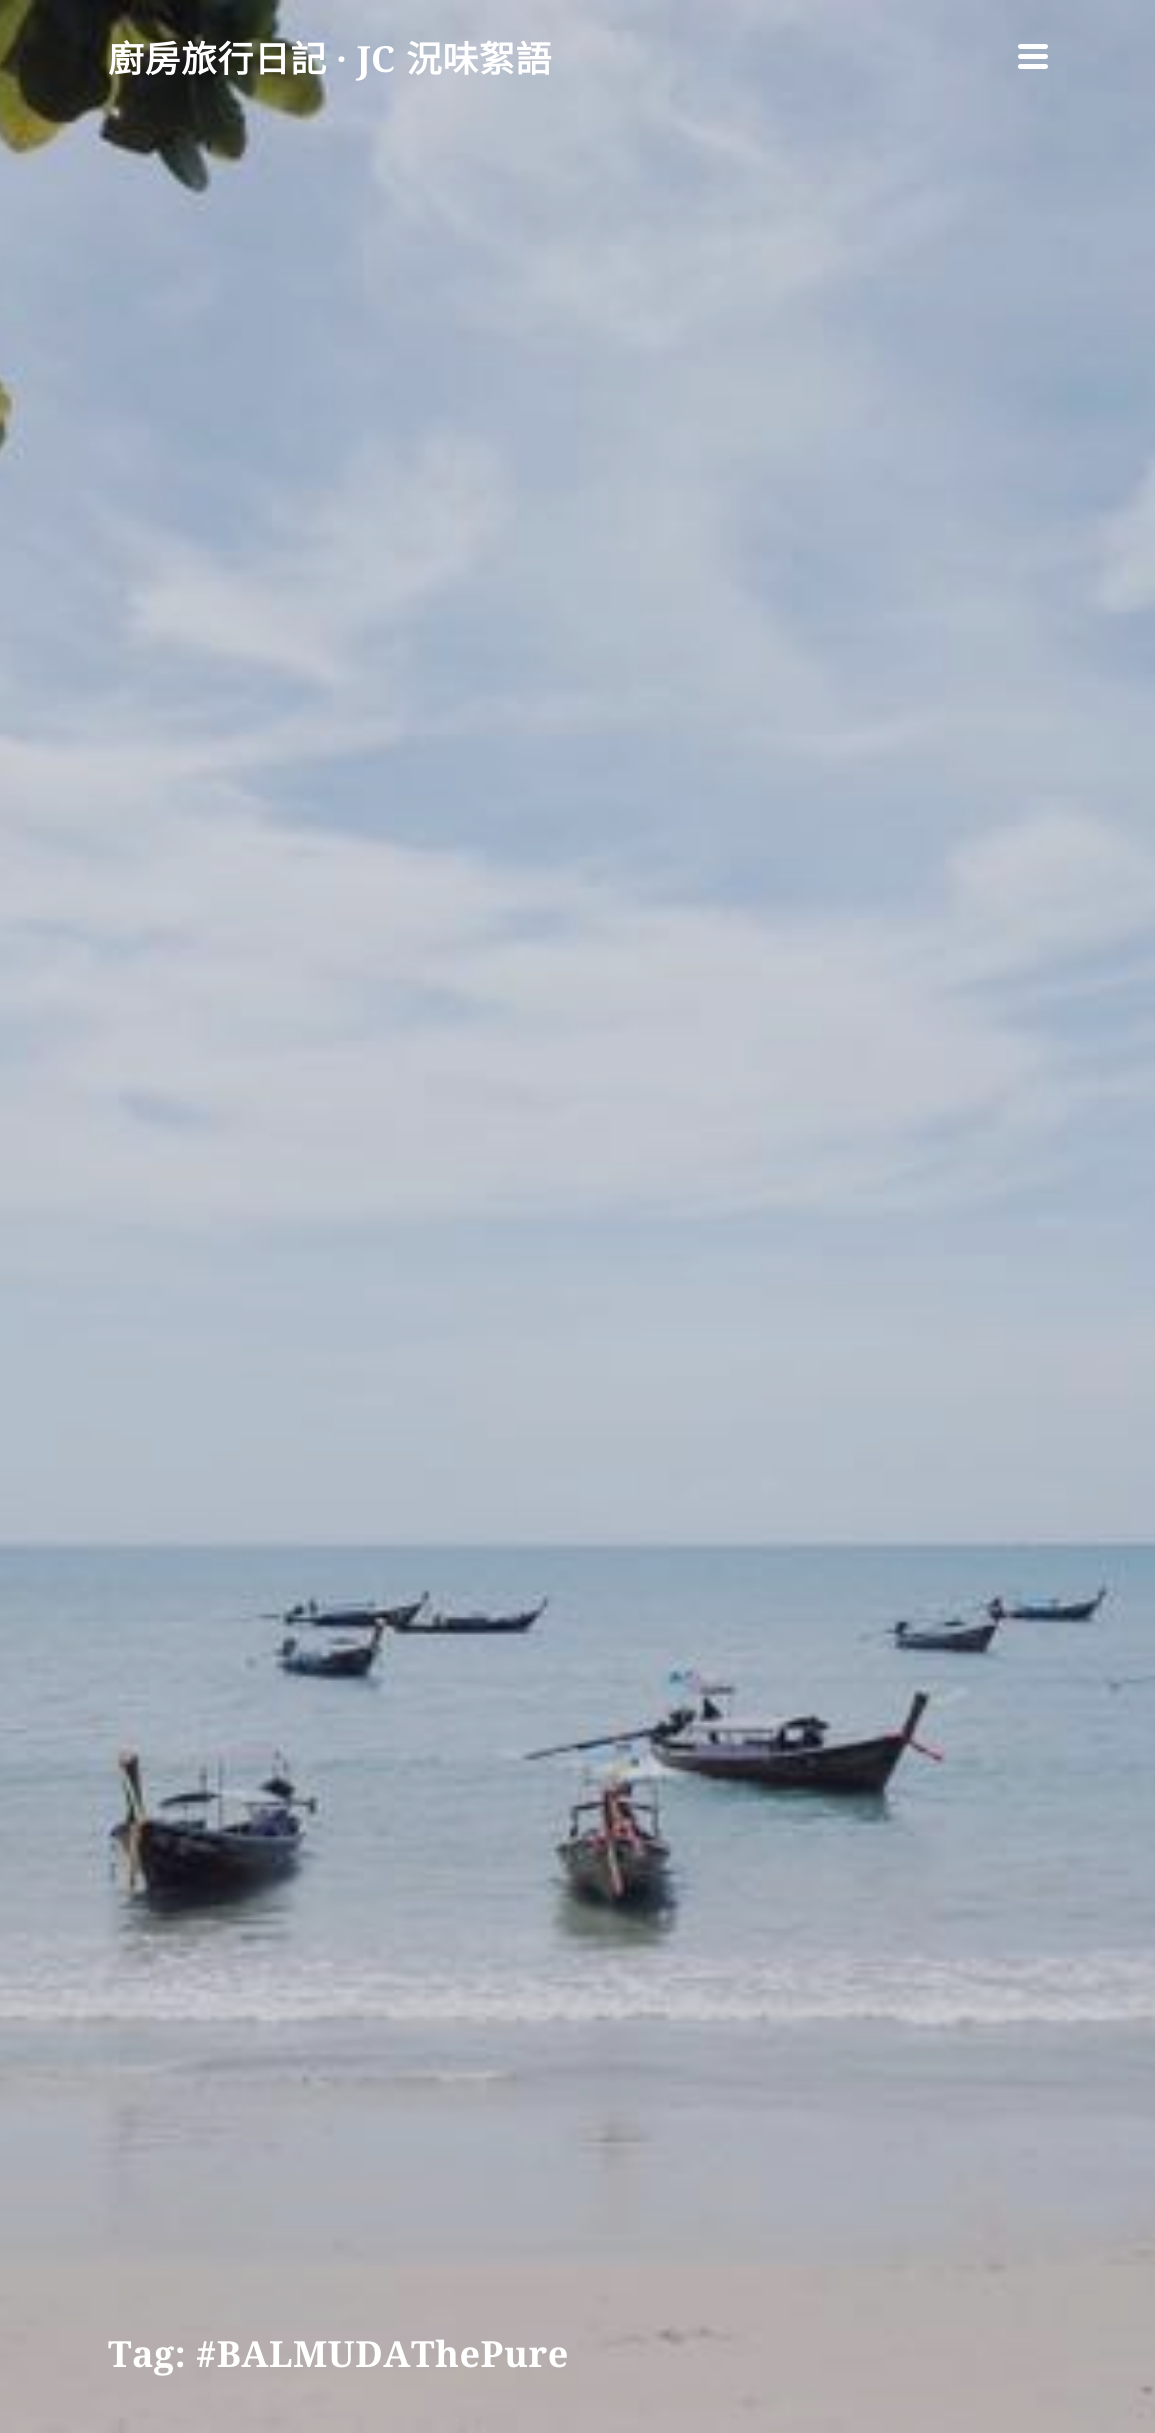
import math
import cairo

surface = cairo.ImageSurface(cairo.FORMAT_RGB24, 1155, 2433)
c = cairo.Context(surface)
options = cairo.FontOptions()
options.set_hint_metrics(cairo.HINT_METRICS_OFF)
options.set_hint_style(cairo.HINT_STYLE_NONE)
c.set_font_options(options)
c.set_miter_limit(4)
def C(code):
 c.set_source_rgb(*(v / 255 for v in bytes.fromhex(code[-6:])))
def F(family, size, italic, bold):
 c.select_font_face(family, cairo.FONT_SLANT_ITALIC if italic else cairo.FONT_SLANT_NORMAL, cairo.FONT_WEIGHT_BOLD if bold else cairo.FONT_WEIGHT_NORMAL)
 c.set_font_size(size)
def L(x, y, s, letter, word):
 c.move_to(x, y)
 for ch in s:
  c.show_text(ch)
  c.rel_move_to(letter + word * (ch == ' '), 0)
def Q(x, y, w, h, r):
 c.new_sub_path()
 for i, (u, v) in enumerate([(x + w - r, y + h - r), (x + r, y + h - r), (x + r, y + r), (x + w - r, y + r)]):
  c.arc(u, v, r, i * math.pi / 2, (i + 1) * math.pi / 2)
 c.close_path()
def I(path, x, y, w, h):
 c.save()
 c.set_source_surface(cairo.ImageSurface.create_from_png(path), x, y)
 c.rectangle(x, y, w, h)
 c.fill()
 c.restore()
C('ffffff')
c.paint()
I('1.png',0,0,1155,2433)
F('Noto Sans CJK TC',36,0,1)
C('ffffff')
L(108,72,'廚房旅行日記',.5,0)
F('Droid Serif',36,0,1)
L(336,72,'· JC',.5,0)
F('Noto Sans CJK TC',36,0,1)
L(406,72,'況味絮語',.5,0)
Q(1018,44,30,5,2.5)
c.fill()
Q(1018,54,30,5,2.5)
c.fill()
Q(1018,64,30,5,2.5)
c.fill()
F('Droid Serif',36,0,1)
L(108,2367,'Tag: #BALMUDAThePure',.5,0)
surface.write_to_png('o.png')
